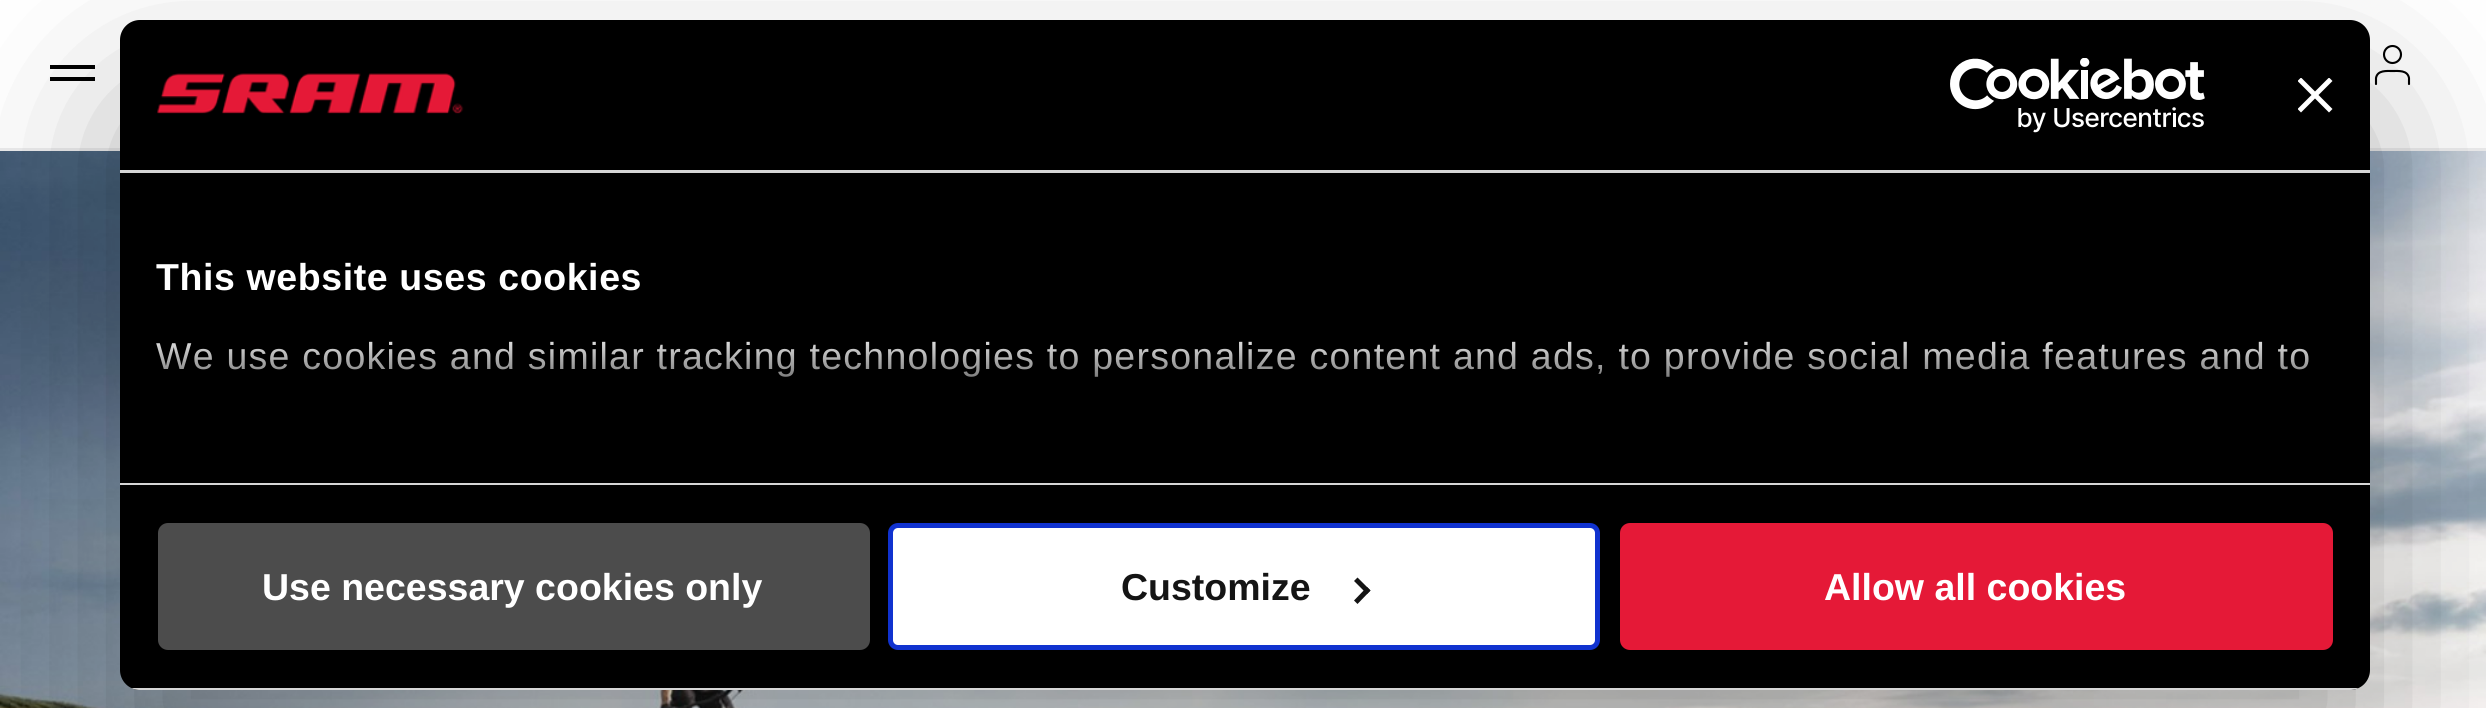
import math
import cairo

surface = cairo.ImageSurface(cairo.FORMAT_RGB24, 2486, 708)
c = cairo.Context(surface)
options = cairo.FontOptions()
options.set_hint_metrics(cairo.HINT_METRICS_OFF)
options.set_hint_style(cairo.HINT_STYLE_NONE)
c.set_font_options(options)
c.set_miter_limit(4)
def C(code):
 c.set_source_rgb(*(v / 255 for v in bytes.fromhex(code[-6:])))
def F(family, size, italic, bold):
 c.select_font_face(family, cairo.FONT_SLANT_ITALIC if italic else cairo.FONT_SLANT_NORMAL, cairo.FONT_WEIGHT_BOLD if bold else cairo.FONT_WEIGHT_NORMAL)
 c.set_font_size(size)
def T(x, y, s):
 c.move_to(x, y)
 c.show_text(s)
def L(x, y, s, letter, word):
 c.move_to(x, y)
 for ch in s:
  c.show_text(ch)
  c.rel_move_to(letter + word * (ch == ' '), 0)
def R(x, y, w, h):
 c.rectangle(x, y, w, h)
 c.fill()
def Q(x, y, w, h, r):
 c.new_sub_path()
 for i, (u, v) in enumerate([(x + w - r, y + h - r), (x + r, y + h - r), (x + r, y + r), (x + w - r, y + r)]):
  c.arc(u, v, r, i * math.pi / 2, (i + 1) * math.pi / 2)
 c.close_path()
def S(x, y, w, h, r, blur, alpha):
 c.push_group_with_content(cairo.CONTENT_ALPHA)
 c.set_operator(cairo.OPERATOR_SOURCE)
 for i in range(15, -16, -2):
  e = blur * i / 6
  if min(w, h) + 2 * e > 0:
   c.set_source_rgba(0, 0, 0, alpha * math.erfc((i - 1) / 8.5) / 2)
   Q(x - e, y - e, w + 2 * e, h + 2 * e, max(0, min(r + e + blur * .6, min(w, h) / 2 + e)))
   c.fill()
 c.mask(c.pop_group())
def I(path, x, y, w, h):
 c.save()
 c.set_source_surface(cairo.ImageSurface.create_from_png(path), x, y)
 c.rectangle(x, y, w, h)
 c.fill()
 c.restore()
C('ffffff')
c.paint()
C('ededee')
R(0,148,2486,3)
C('000000')
c.new_path()
c.move_to(50,77)
c.line_to(95,77)
c.line_to(95,81)
c.line_to(50,81)
c.close_path()
c.move_to(50,65)
c.line_to(95,65)
c.line_to(95,69)
c.line_to(50,69)
c.close_path()
c.fill()
c.arc(2392.5,54.5,8.5,0,2 * math.pi)
c.set_line_width(2.1)
c.stroke()
c.new_path()
c.move_to(2409,84)
c.line_to(2409,78)
c.curve_to(2407.5,70,2398.5,71,2392.5,71)
c.curve_to(2386.5,71,2377.5,70,2376,78)
c.line_to(2376,84)
c.set_line_cap(cairo.LINE_CAP_ROUND)
c.set_line_join(cairo.LINE_JOIN_ROUND)
c.stroke()
I('1.png',0,151,2486,557)
C('000000')
S(120,100,2250,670,20,85,.3)
C('000000')
Q(120,20,2250,670,20)
c.fill()
C('d6d6d6')
R(120,170,2250,3)
I('2.png',157,73,307,41)
I('3.png',1950,58,255,75)
c.save()
c.rectangle(2298,78,35,35)
c.clip()
C('ffffff')
c.new_path()
c.move_to(2332.5,81)
c.line_to(2329,77.5)
c.line_to(2315,91.5)
c.line_to(2301,77.5)
c.line_to(2297.5,81)
c.line_to(2311.5,95)
c.line_to(2297.5,109)
c.line_to(2301,112.5)
c.line_to(2315,98.5)
c.line_to(2329,112.5)
c.line_to(2332.5,109)
c.line_to(2318.5,95)
c.close_path()
c.fill()
c.restore()
R(120,483,2250,2)
F('Liberation Sans',37.5,0,1)
C('ffffff')
L(156,290,'This website uses cookies',.6,0)
F('Liberation Sans',37.5,0,0)
L(156,369,'We use cookies and similar tracking technologies to personalize content and ads, to provide social media features and to',1.25,0)
gradient = cairo.LinearGradient(1229,483,1229,328)
gradient.add_color_stop_rgba(0,0,0,0,1)
gradient.add_color_stop_rgba(.5,0,0,0,.8)
gradient.add_color_stop_rgba(1,0,0,0,0)
c.set_source(gradient)
R(156,341,2153,36)
c.save()
Q(120,20,2250,670,20)
c.clip()
C('d6d6d6')
R(131,688,2228,2)
c.restore()
C('4c4c4c')
Q(160.5,525.5,707,122,7.5)
c.fill_preserve()
c.set_line_width(5)
c.set_line_cap(cairo.LINE_CAP_BUTT)
c.set_line_join(cairo.LINE_JOIN_MITER)
c.stroke()
F('Liberation Sans',37.5,0,1)
C('ffffff')
T(262,600,'Use necessary cookies only')
Q(890.5,525.5,707,122,7.5)
c.fill_preserve()
C('1032cf')
c.stroke()
C('141414')
T(1121,600,'Customize')
c.new_path()
c.move_to(1357.5,577.5)
c.line_to(1370.5,590.5)
c.line_to(1367,594)
c.line_to(1354,581)
c.close_path()
c.fill()
c.new_path()
c.move_to(1367,587)
c.line_to(1370.5,590.5)
c.line_to(1357.5,604)
c.line_to(1354,600.5)
c.close_path()
c.fill()
C('e51937')
Q(1622.5,525.5,708,122,7.5)
c.fill_preserve()
c.stroke()
C('ffffff')
T(1824,600,'Allow all cookies')
surface.write_to_png('o.png')
